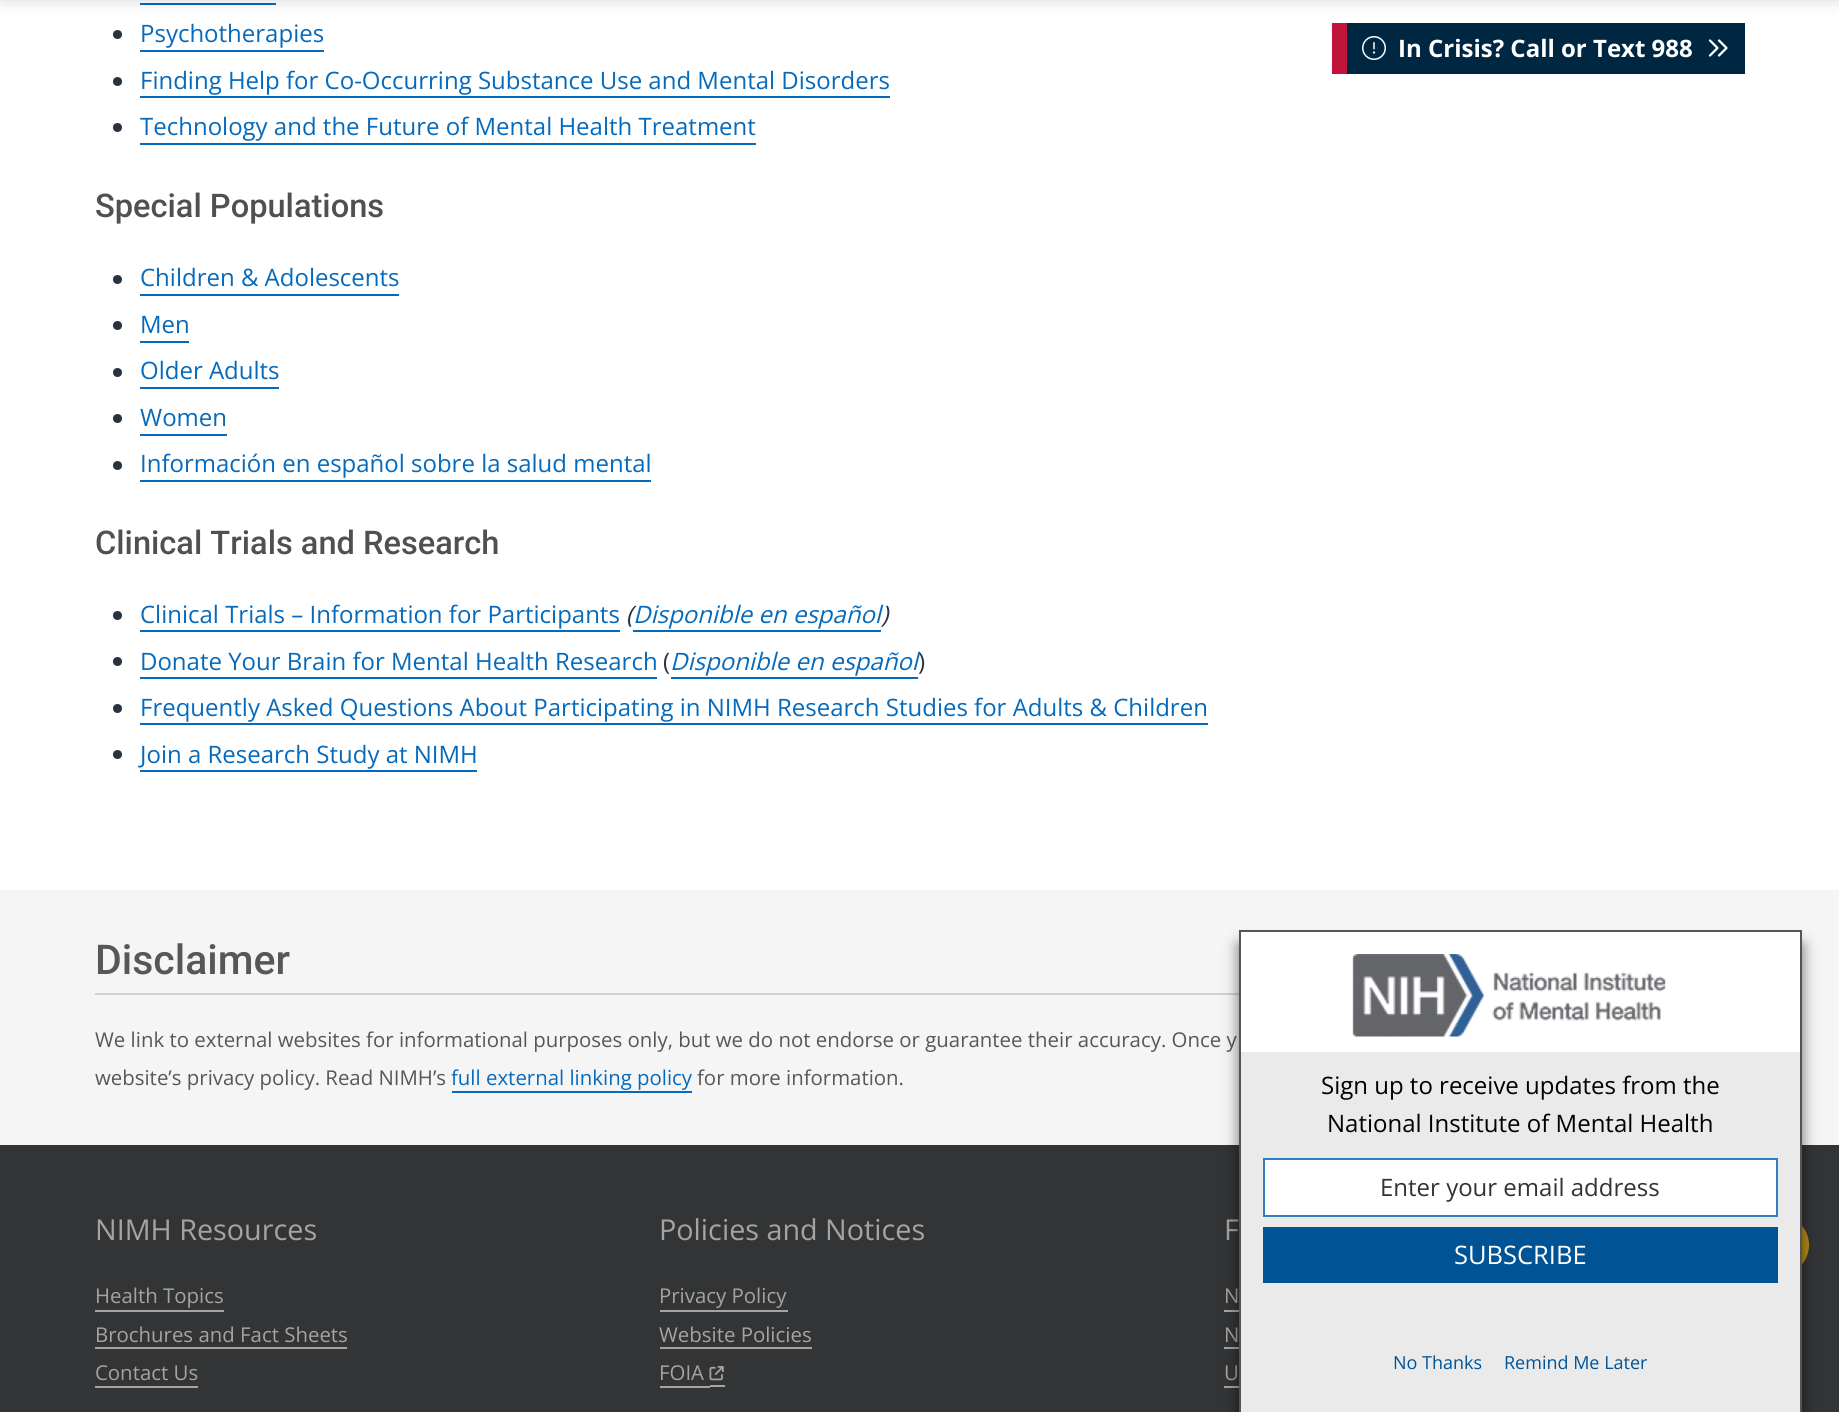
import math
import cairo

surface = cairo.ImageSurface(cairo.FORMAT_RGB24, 1839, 1412)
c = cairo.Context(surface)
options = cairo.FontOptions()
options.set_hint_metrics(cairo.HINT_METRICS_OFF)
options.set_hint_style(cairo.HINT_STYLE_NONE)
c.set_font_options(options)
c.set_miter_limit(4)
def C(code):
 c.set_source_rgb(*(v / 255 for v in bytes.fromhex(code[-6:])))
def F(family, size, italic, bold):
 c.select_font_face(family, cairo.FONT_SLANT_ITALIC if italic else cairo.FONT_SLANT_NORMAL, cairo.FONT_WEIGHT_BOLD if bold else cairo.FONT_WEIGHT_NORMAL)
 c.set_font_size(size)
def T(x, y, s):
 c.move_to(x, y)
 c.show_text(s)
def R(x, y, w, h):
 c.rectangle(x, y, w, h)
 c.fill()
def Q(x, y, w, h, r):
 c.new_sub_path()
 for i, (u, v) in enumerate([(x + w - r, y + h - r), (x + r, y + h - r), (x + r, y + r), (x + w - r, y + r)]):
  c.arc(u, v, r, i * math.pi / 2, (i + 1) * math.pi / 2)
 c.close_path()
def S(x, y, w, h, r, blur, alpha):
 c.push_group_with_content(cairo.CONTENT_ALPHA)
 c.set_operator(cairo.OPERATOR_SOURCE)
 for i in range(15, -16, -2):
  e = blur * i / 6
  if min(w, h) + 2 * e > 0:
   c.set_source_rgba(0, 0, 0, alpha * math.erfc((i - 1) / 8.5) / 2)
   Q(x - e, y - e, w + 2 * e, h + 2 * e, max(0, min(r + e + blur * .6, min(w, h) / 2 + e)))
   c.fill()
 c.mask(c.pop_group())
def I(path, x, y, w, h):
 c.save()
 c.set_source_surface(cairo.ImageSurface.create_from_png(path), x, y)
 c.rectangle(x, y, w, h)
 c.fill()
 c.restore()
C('ffffff')
c.paint()
C('066abc')
R(140,3,136,2)
C('002742')
R(1347,23,398,51)
C('c0143c')
R(1332,23,15,51)
C('000000')
S(0,-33,1839,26,0,11,.3)
C('293340')
c.arc(117.5,34.5,4.5,0,2 * math.pi)
c.fill()
F('Open Sans',24,0,0)
C('066abc')
T(140,42,'Psychotherapies')
R(140,50,184,2)
C('293340')
c.new_path()
c.arc(117.5,81.5,4.5,0,2 * math.pi)
c.fill()
C('066abc')
T(140,89,'Finding Help for Co-Occurring Substance Use and Mental Disorders')
R(140,96,750,2)
C('293340')
c.new_path()
c.arc(117.5,127.5,4.5,0,2 * math.pi)
c.fill()
C('066abc')
T(140,135,'Technology and the Future of Mental Health Treatment')
R(140,143,616,2)
F('Roboto Medium',32.6,0,0)
C('505050')
T(95,217,'Special Populations')
C('293340')
c.new_path()
c.arc(117.5,279.5,4.5,0,2 * math.pi)
c.fill()
F('Open Sans',24,0,0)
C('066abc')
T(140,286,'Children & Adolescents')
R(140,294,259,2)
C('293340')
c.new_path()
c.arc(117.5,325.5,4.5,0,2 * math.pi)
c.fill()
C('066abc')
T(140,333,'Men')
R(140,341,49,2)
C('293340')
c.new_path()
c.arc(117.5,372.5,4.5,0,2 * math.pi)
c.fill()
C('066abc')
T(140,379,'Older Adults')
R(140,387,139,2)
C('293340')
c.new_path()
c.arc(117.5,418.5,4.5,0,2 * math.pi)
c.fill()
C('066abc')
T(140,426,'Women')
R(140,434,87,2)
C('293340')
c.new_path()
c.arc(117.5,465.5,4.5,0,2 * math.pi)
c.fill()
C('066abc')
T(140,472,'Información en español sobre la salud mental')
R(140,480,511,2)
F('Roboto Medium',32.6,0,0)
C('505050')
T(95,554,'Clinical Trials and Research')
C('293340')
c.new_path()
c.arc(117.5,615.5,4.5,0,2 * math.pi)
c.fill()
F('Open Sans',24,0,0)
C('066abc')
T(140,623,'Clinical Trials – Information for Participants')
R(140,630,480,2)
F('Open Sans',24,1,0)
C('293340')
T(626,623,'(')
C('066abc')
T(633,623,'Disponible en español')
R(633,630,248,2)
C('293340')
T(881,623,')')
c.new_path()
c.arc(117.5,661.5,4.5,0,2 * math.pi)
c.fill()
F('Open Sans',24,0,0)
C('066abc')
T(140,670,'Donate Your Brain for Mental Health Research')
R(140,677,517,2)
C('293340')
T(663,670,'(')
F('Open Sans',24,1,0)
C('066abc')
T(670,670,'Disponible en español')
R(671,677,247,2)
F('Open Sans',24,0,0)
C('293340')
T(918,670,')')
c.new_path()
c.arc(117.5,708.5,4.5,0,2 * math.pi)
c.fill()
C('066abc')
T(140,716,'Frequently Asked Questions About Participating in NIMH Research Studies for Adults & Children')
R(140,723,1068,2)
C('293340')
c.new_path()
c.arc(117.5,754.5,4.5,0,2 * math.pi)
c.fill()
C('066abc')
T(140,763,'Join a Research Study at NIMH')
R(140,770,337,2)
I('1.png',1362,36,24,24)
F('Open Sans',24,0,1)
C('ffffff')
T(1398,57,'In Crisis? Call or Text 988')
I('2.png',1708,39,20,18)
C('f5f5f6')
R(0,890,1839,255)
C('d1d1d1')
R(95,993,1144,2)
F('Roboto Medium',41,0,0)
C('575757')
T(95,974,'Disclaimer')
F('Open Sans',20.4,0,0)
T(95,1047,'We link to external websites for informational purposes only, but we do not endorse or guarantee their accuracy. Once y')
T(95,1085,'website’s privacy policy. Read NIMH’s')
C('066abc')
T(451,1085,'full external linking policy')
R(452,1091,240,2)
C('575757')
T(697,1085,'for more information.')
C('333435')
R(0,1145,1839,267)
F('Open Sans',28.75,0,0)
C('a4a4a4')
T(95,1240,'NIMH Resources')
F('Open Sans',20.4,0,0)
T(95,1303,'Health Topics')
R(95,1310,129,2)
T(95,1342,'Brochures and Fact Sheets')
R(95,1347,252,2)
T(95,1380,'Contact Us')
R(95,1386,103,2)
F('Open Sans',28.75,0,0)
T(659,1240,'Policies and Notices')
F('Open Sans',20.4,0,0)
T(659,1303,'Privacy Policy')
R(660,1310,128,2)
T(659,1342,'Website Policies')
R(660,1347,152,2)
T(659,1380,'FOIA')
R(660,1386,50,2)
R(710,1385,15,2)
I('3.png',709,1366,15,15)
F('Open Sans',28.75,0,0)
T(1224,1240,'F')
F('Open Sans',20.4,0,0)
T(1224,1303,'N')
R(1224,1310,15,2)
T(1224,1342,'N')
R(1224,1347,15,2)
T(1224,1380,'U')
R(1224,1386,15,2)
C('b88c18')
c.new_path()
c.arc(1779,1245,30,0,2 * math.pi)
c.fill()
C('000000')
S(1239,945,563,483,0,7.5,.56)
C('eaeaea')
R(1241,1052,559,360)
C('555555')
R(1239,930,563,2)
R(1800,930,2,482)
R(1239,930,2,482)
C('ffffff')
R(1241,932,559,120)
I('4.png',1352,954,314,83)
F('Open Sans',24,0,0)
C('000000')
T(1321,1094,'Sign up to receive updates from the')
T(1327,1132,'National Institute of Mental Health')
C('ffffff')
c.rectangle(1264,1159,513,57)
c.fill_preserve()
C('347cbe')
c.stroke()
C('333333')
T(1380,1196,'Enter your email address')
C('005395')
R(1263,1227,515,56)
F('Open Sans',25.5,0,0)
C('ffffff')
T(1454,1264,'SUBSCRIBE')
F('Open Sans',18,0,0)
C('005395')
T(1393,1369,'No Thanks')
T(1504,1369,'Remind Me Later')
surface.write_to_png('o.png')
